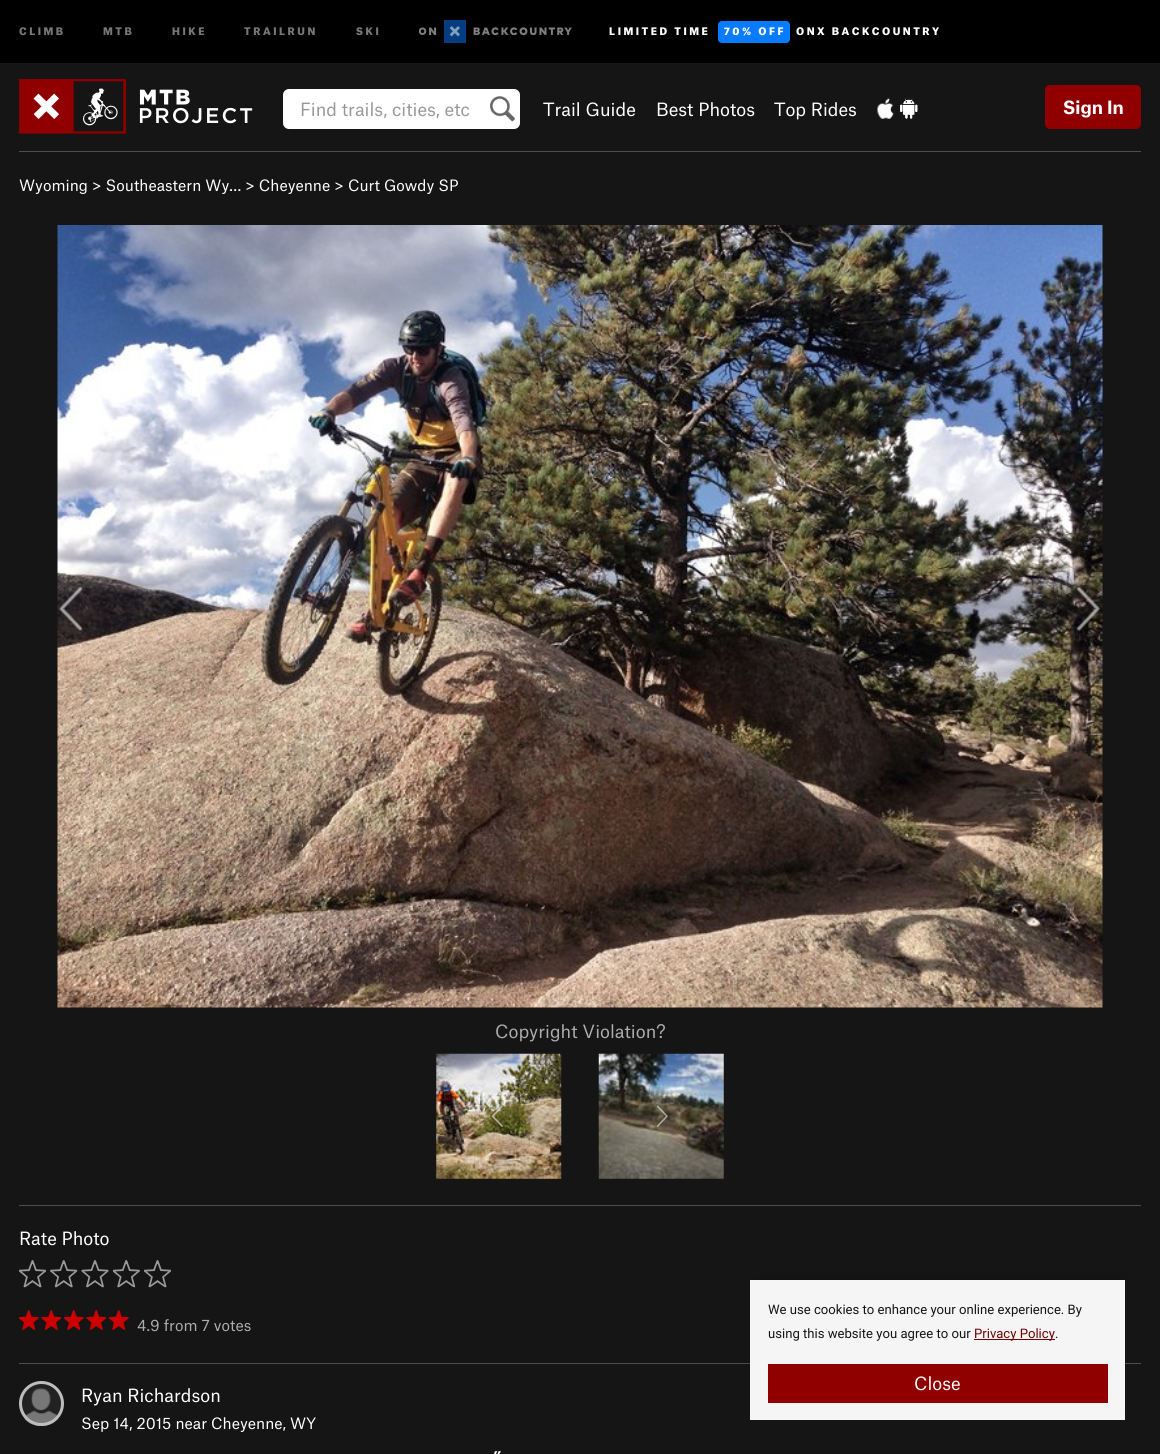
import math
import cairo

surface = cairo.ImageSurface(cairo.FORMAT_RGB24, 1160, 1454)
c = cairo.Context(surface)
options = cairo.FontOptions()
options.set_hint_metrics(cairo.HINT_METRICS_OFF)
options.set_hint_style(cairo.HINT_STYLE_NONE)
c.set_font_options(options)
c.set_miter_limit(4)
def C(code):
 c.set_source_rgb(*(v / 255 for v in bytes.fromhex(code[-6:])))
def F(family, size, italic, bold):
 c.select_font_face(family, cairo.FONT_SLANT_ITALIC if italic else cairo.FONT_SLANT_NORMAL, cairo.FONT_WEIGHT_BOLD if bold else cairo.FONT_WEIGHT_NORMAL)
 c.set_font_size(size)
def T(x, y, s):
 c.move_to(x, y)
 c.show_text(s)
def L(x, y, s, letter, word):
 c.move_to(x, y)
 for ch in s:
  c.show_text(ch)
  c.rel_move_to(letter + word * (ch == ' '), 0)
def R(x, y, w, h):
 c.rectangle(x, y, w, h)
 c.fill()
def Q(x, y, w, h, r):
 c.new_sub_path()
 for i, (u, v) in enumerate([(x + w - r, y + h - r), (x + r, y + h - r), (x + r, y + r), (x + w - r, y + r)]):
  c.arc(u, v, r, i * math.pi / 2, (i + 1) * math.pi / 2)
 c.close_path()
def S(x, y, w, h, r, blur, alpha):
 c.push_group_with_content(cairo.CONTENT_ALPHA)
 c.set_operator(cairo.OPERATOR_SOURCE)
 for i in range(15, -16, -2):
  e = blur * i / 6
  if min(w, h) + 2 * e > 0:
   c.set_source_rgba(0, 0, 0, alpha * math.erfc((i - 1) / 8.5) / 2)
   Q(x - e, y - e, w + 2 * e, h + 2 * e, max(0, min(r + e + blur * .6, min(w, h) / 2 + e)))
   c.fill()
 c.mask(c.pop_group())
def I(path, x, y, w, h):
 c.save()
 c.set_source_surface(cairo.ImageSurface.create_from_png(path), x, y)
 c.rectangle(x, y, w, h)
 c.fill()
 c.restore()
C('151515')
c.paint()
C('000000')
R(0,0,1160,63)
F('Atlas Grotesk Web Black',10,0,0)
C('777777')
L(19,35,'CLIMB',2.5,0)
L(103,35,'MTB',2.5,0)
L(172,35,'HIKE',2.5,0)
L(244,35,'TRAILRUN',2.5,0)
L(356,35,'SKI',2.5,0)
I('1.png',419,20,153,23)
C('ffffff')
L(609,35,'LIMITED TIME',2.5,0)
C('087bff')
Q(718,21,72,22,4)
c.fill()
C('ffffff')
L(724,35,'70% OFF',2.5,0)
L(796,35,'ONX BACKCOUNTRY',2.5,0)
I('2.png',19,79,234,55)
Q(283,89,237,40,6)
c.fill()
I('3.png',490,96,25,26)
F('Atlas Grotesk Web',17.5,0,0)
C('999999')
T(300,116,'Find trails, cities, etc')
C('ffffff')
T(543,116,'Trail Guide')
T(656,116,'Best Photos')
T(774,116,'Top Rides')
I('4.png',877,98,17,21)
I('5.png',900,98,18,21)
C('900000')
Q(1045,85,96,44,5)
c.fill()
F('Atlas Grotesk Web',17.5,0,1)
C('ffffff')
T(1063,114,'Sign In')
C('4e4d49')
R(19,151,1122,1)
F('Atlas Grotesk Web',15,0,0)
C('ffffff')
T(19,191,'Wyoming > Southeastern Wy… > Cheyenne > Curt Gowdy SP')
I('6.png',57,225,1046,783)
I('7.png',59,584,25,47)
I('8.png',1074,584,27,47)
F('Atlas Grotesk Web',17.5,0,0)
C('acacac')
T(495,1038,'Copyright Violation?')
I('9.png',436,1053,126,126)
I('10.png',490,1104,14,24)
I('11.png',598,1053,126,126)
I('12.png',655,1104,14,25)
C('4e4d49')
R(19,1205,1122,1)
C('ffffff')
T(19,1245,'Rate Photo')
I('13.png',19,1260,27,28)
I('14.png',50,1260,28,28)
I('15.png',81,1260,28,28)
I('16.png',113,1260,27,28)
I('13.png',144,1260,27,28)
I('17.png',19,1310,20,20)
I('18.png',41,1310,20,20)
I('17.png',64,1310,20,20)
I('18.png',86,1310,20,20)
I('17.png',109,1310,20,20)
F('Atlas Grotesk Web',15,0,0)
C('acacac')
T(137,1331,'4.9 from 7 votes')
C('4e4d49')
R(19,1363,1122,1)
I('19.png',19,1381,44,45)
c.arc(41.5,1403.5,21,0,2 * math.pi)
C('bdbdbd')
c.set_line_width(3)
c.stroke()
F('Atlas Grotesk Web',17.5,0,0)
C('ffffff')
T(81,1402,'Ryan Richardson')
F('Atlas Grotesk Web',15,0,0)
T(81,1429,'Sep 14, 2015 near Cheyenne, WY')
F('Atlas Grotesk Web',22,1,0)
T(491,1468,'”')
C('000000')
S(756,1280,363,128,0,6,.25)
C('f5f5f5')
R(750,1280,375,140)
F('Roboto',13.1,0,0)
C('151515')
T(768,1314,'We use cookies to enhance your online experience. By')
T(768,1338,'using this website you agree to our')
C('710100')
R(974,1339,81,1)
T(974,1338,'Privacy Policy')
C('151515')
T(1055,1338,'.')
C('900000')
R(768,1364,340,39)
F('Atlas Grotesk Web',17.5,0,0)
C('ffffff')
T(914,1390,'Close')
surface.write_to_png('o.png')
